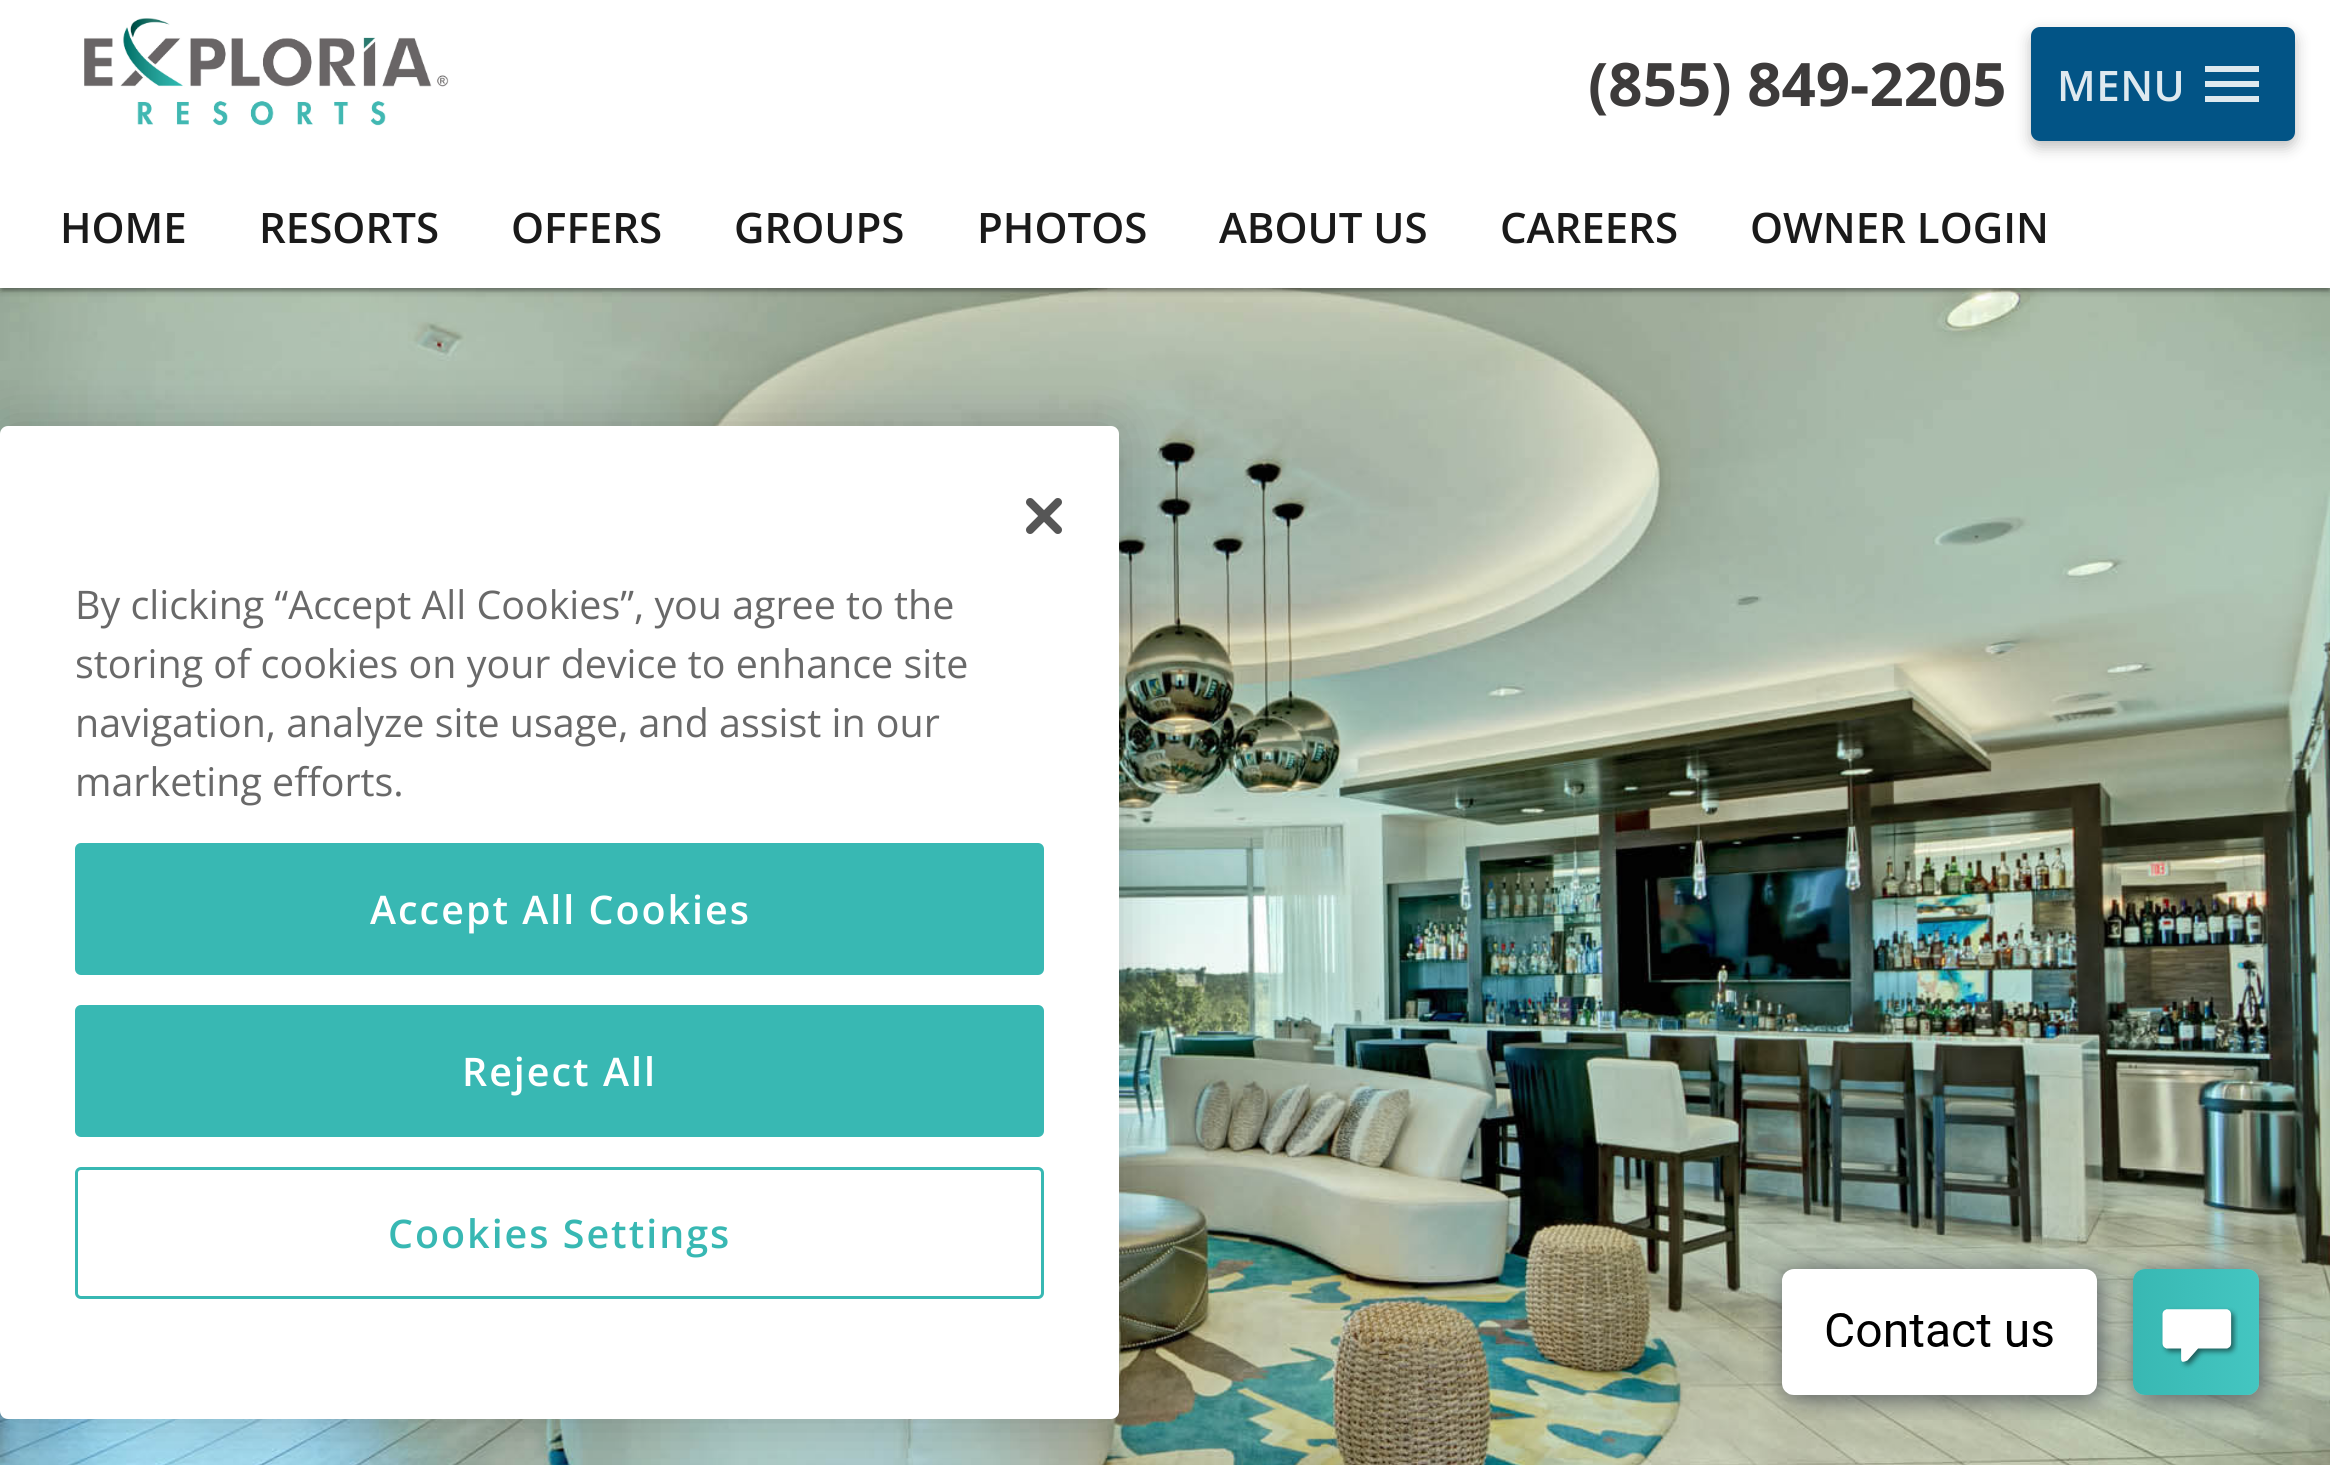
import math
import cairo

surface = cairo.ImageSurface(cairo.FORMAT_RGB24, 2330, 1465)
c = cairo.Context(surface)
options = cairo.FontOptions()
options.set_hint_metrics(cairo.HINT_METRICS_OFF)
options.set_hint_style(cairo.HINT_STYLE_NONE)
c.set_font_options(options)
c.set_miter_limit(4)
def C(code):
 c.set_source_rgb(*(v / 255 for v in bytes.fromhex(code[-6:])))
def F(family, size, italic, bold):
 c.select_font_face(family, cairo.FONT_SLANT_ITALIC if italic else cairo.FONT_SLANT_NORMAL, cairo.FONT_WEIGHT_BOLD if bold else cairo.FONT_WEIGHT_NORMAL)
 c.set_font_size(size)
def T(x, y, s):
 c.move_to(x, y)
 c.show_text(s)
def L(x, y, s, letter, word):
 c.move_to(x, y)
 for ch in s:
  c.show_text(ch)
  c.rel_move_to(letter + word * (ch == ' '), 0)
def Q(x, y, w, h, r):
 c.new_sub_path()
 for i, (u, v) in enumerate([(x + w - r, y + h - r), (x + r, y + h - r), (x + r, y + r), (x + w - r, y + r)]):
  c.arc(u, v, r, i * math.pi / 2, (i + 1) * math.pi / 2)
 c.close_path()
def S(x, y, w, h, r, blur, alpha):
 c.push_group_with_content(cairo.CONTENT_ALPHA)
 c.set_operator(cairo.OPERATOR_SOURCE)
 for i in range(15, -16, -2):
  e = blur * i / 6
  if min(w, h) + 2 * e > 0:
   c.set_source_rgba(0, 0, 0, alpha * math.erfc((i - 1) / 8.5) / 2)
   Q(x - e, y - e, w + 2 * e, h + 2 * e, max(0, min(r + e + blur * .6, min(w, h) / 2 + e)))
   c.fill()
 c.mask(c.pop_group())
def I(path, x, y, w, h):
 c.save()
 c.set_source_surface(cairo.ImageSurface.create_from_png(path), x, y)
 c.rectangle(x, y, w, h)
 c.fill()
 c.restore()
C('ffffff')
c.paint()
I('2.png',0,288,2330,1177)
c.save()
c.rectangle(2,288,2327,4)
c.clip()
C('000000')
S(3,9,2325,282,0,1.5,.12)
c.restore()
c.save()
c.rectangle(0,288,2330,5)
c.clip()
C('000000')
S(0,3,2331,288,0,1.5,.14)
c.restore()
c.save()
c.rectangle(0,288,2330,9)
c.clip()
C('000000')
S(0,3,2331,288,0,4.5,.2)
c.restore()
I('1.png',84,18,365,108)
F('Open Sans',60,0,1)
C('3d3b3b')
T(1588,106,'(855) 849-2205')
C('000000')
S(2031,33,264,114,9,7.5,.26)
C('025486')
Q(2031,27,264,114,9)
c.fill()
F('Open Sans SemiBold',42,0,0)
C('dee9ef')
L(2057,101,'MENU',.5,0)
c.new_path()
c.move_to(2205,66)
c.line_to(2259,66)
c.line_to(2259,72)
c.line_to(2205,72)
c.close_path()
c.move_to(2205,87)
c.line_to(2205,81)
c.line_to(2259,81)
c.line_to(2259,87)
c.close_path()
c.move_to(2205,102)
c.line_to(2205,96)
c.line_to(2259,96)
c.line_to(2259,102)
c.close_path()
c.fill()
C('1a1a1a')
T(60,243,'HOME')
T(259,243,'RESORTS')
T(511,243,'OFFERS')
T(734,243,'GROUPS')
T(977,243,'PHOTOS')
T(1219,243,'ABOUT US')
T(1500,243,'CAREERS')
T(1750,243,'OWNER LOGIN')
C('000000')
S(0,426,1119,993,8,27,.2)
C('ffffff')
Q(0,426,1119,993,8)
c.fill()
I('3.png',1026,498,36,36)
F('Open Sans',39.4,0,0)
C('696969')
T(75,619,'By clicking “Accept All Cookies”, you agree to the')
T(75,678,'storing of cookies on your device to enhance site')
T(75,737,'navigation, analyze site usage, and assist in our')
T(75,796,'marketing efforts.')
C('38b8b3')
Q(76.5,844.5,966,129,4.5)
c.fill_preserve()
c.set_line_width(3)
c.stroke()
F('Open Sans SemiBold',39.4,0,0)
C('ffffff')
L(370,924,'Accept All Cookies',2,0)
C('38b8b3')
Q(76.5,1006.5,966,129,4.5)
c.fill_preserve()
c.stroke()
C('ffffff')
L(462,1086,'Reject All',2,0)
Q(76.5,1168.5,966,129,4.5)
C('38b8b3')
c.stroke()
L(388,1248,'Cookies Settings',2,0)
I('4.png',1763,1250,521,170)
surface.write_to_png('o.png')
